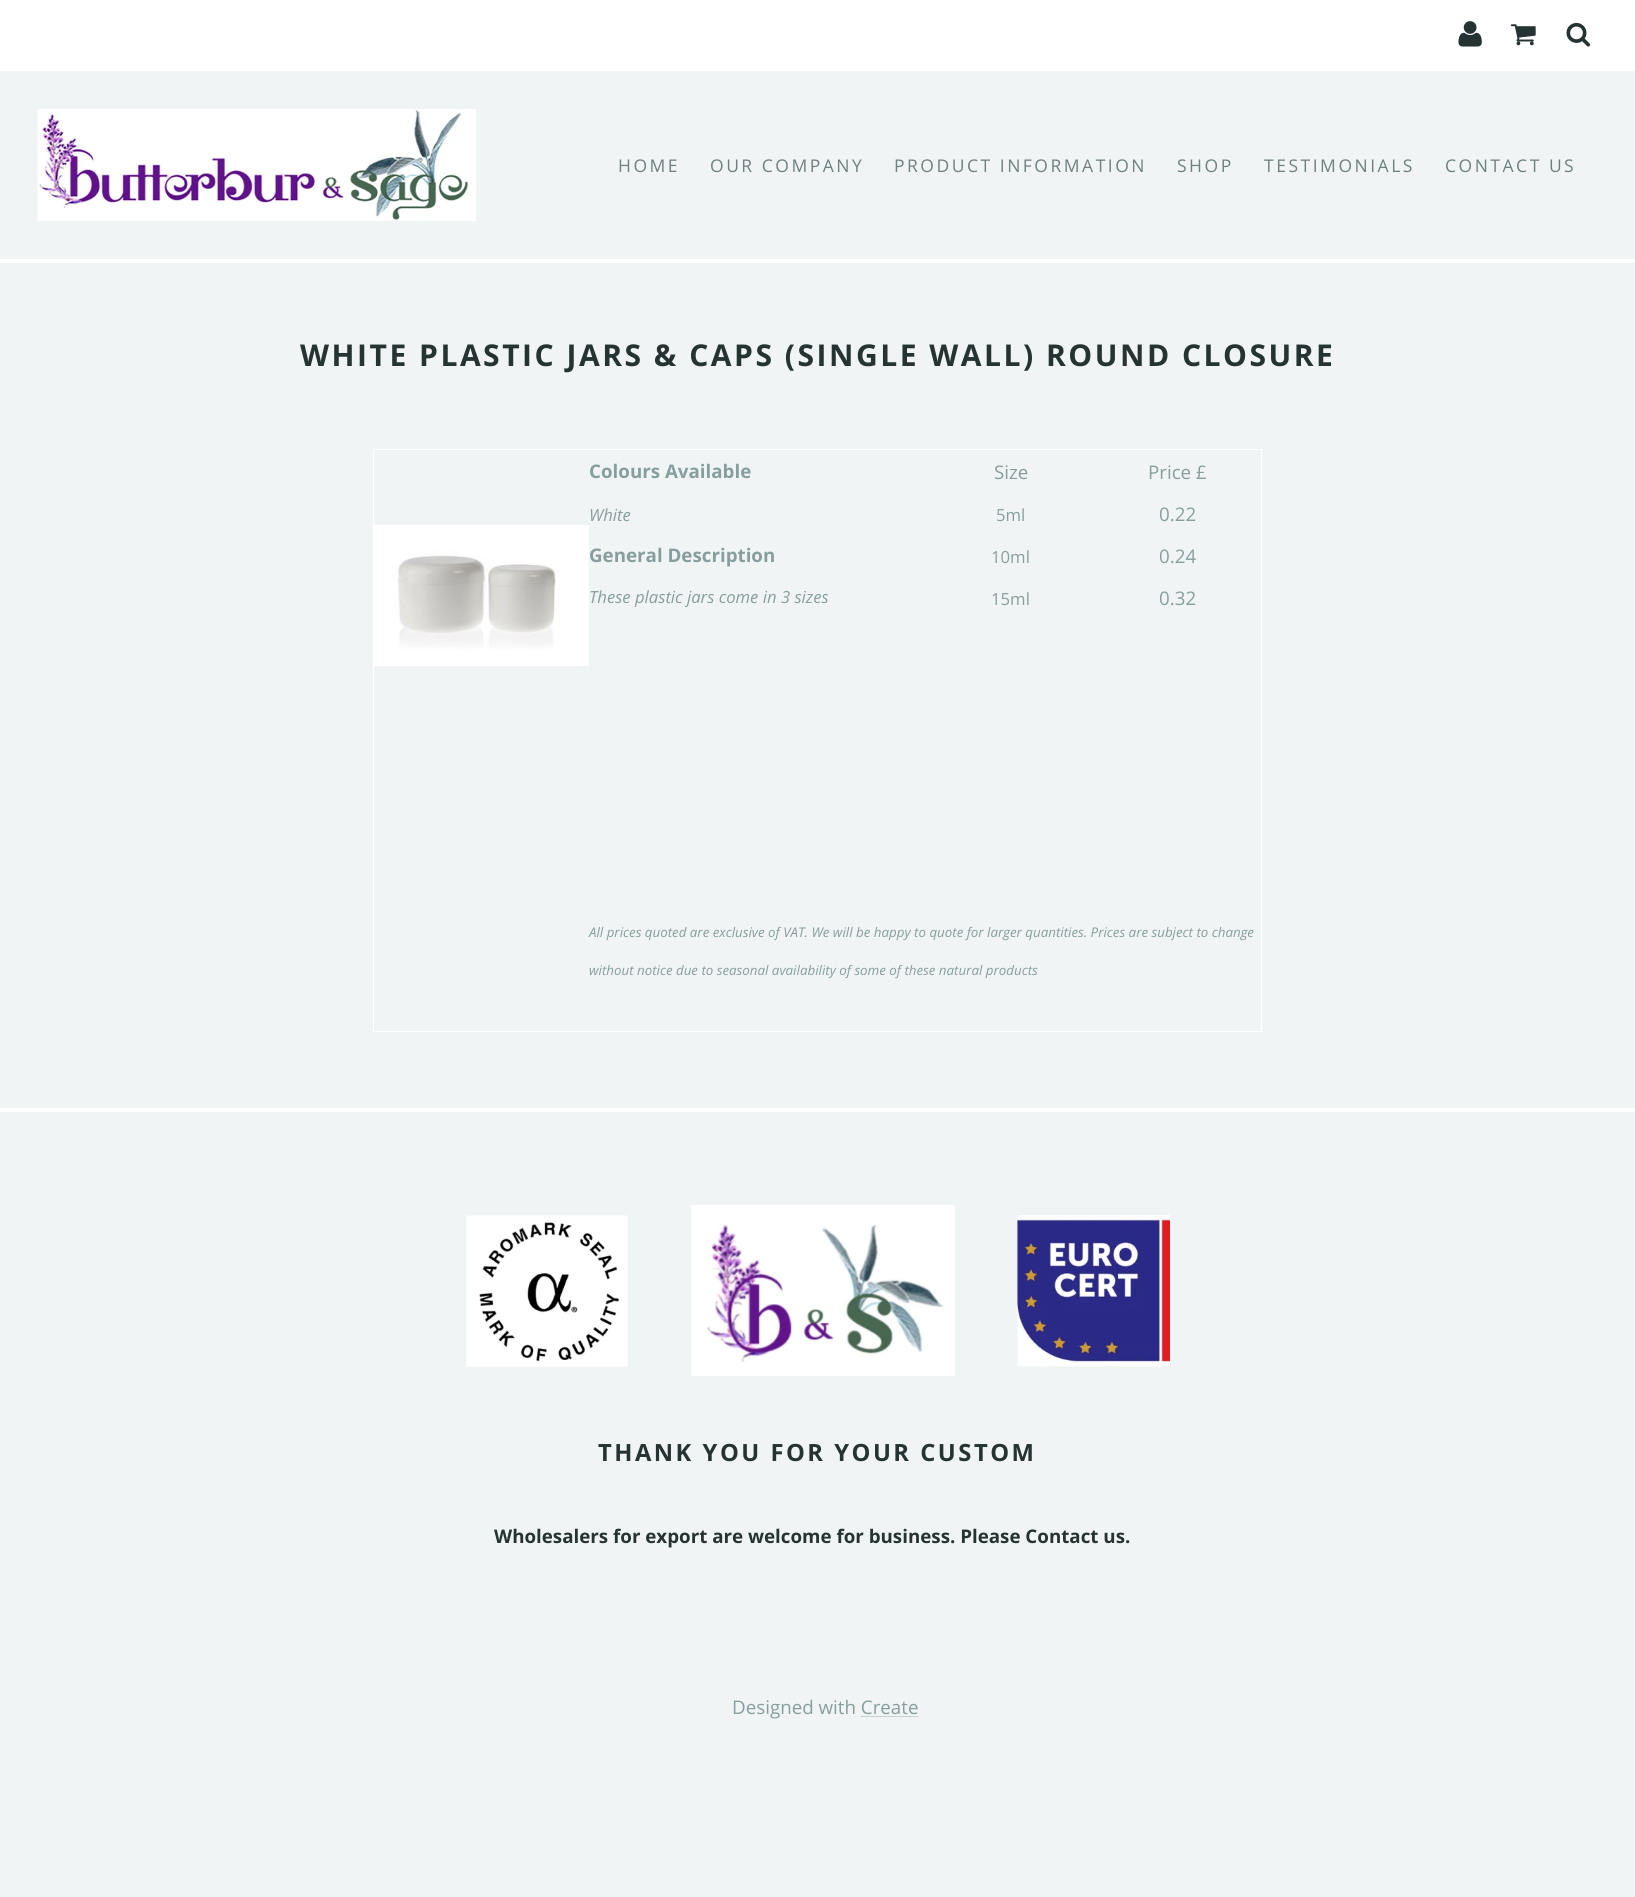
import math
import cairo

surface = cairo.ImageSurface(cairo.FORMAT_RGB24, 1635, 1897)
c = cairo.Context(surface)
options = cairo.FontOptions()
options.set_hint_metrics(cairo.HINT_METRICS_OFF)
options.set_hint_style(cairo.HINT_STYLE_NONE)
c.set_font_options(options)
c.set_miter_limit(4)
def C(code):
 c.set_source_rgb(*(v / 255 for v in bytes.fromhex(code[-6:])))
def F(family, size, italic, bold):
 c.select_font_face(family, cairo.FONT_SLANT_ITALIC if italic else cairo.FONT_SLANT_NORMAL, cairo.FONT_WEIGHT_BOLD if bold else cairo.FONT_WEIGHT_NORMAL)
 c.set_font_size(size)
def T(x, y, s):
 c.move_to(x, y)
 c.show_text(s)
def L(x, y, s, letter, word):
 c.move_to(x, y)
 for ch in s:
  c.show_text(ch)
  c.rel_move_to(letter + word * (ch == ' '), 0)
def R(x, y, w, h):
 c.rectangle(x, y, w, h)
 c.fill()
def I(path, x, y, w, h):
 c.save()
 c.set_source_surface(cairo.ImageSurface.create_from_png(path), x, y)
 c.rectangle(x, y, w, h)
 c.fill()
 c.restore()
C('f0f4f4')
c.paint()
C('ffffff')
R(0,0,1635,71)
I('1.png',1458,21,24,26)
I('2.png',1510,24,26,22)
I('3.png',1566,22,25,25)
R(0,259,1635,4)
I('4.png',37,109,439,112)
F('Open Sans',17.5,0,0)
C('6e8080')
L(618,172,'HOME',2.5,0)
L(710,172,'OUR COMPANY',2.5,0)
L(894,172,'PRODUCT INFORMATION',2.5,0)
L(1177,172,'SHOP',2.5,0)
L(1264,172,'TESTIMONIALS',2.5,0)
L(1445,172,'CONTACT US',2.5,0)
F('Open Sans',30.05,0,1)
C('263333')
L(300,366,'WHITE PLASTIC JARS & CAPS (SINGLE WALL) ROUND CLOSURE',2.5,0)
C('ffffff')
R(373,449,890,1)
R(1261,449,1,584)
R(373,1031,890,1)
R(373,449,1,584)
F('Open Sans',18.75,0,1)
C('889e9e')
T(589,478,'Colours Available')
F('Open Sans',18.75,0,0)
T(994,479,'Size')
T(1148,479,'Price £')
I('5.png',374,525,215,141)
F('Open Sans',16.7,1,0)
T(589,521,'White')
F('Open Sans',16.7,0,0)
T(996,521,'5ml')
F('Open Sans',18.75,0,0)
T(1159,521,'0.22')
F('Open Sans',18.75,0,1)
T(589,562,'General Description')
F('Open Sans',16.7,0,0)
T(991,563,'10ml')
F('Open Sans',18.75,0,0)
T(1159,563,'0.24')
F('Open Sans',16.7,1,0)
T(589,603,'These plastic jars come in 3 sizes')
F('Open Sans',16.7,0,0)
T(991,605,'15ml')
F('Open Sans',18.75,0,0)
T(1159,605,'0.32')
F('Open Sans',13.35,1,0)
T(589,937,'All prices quoted are exclusive of VAT. We will be happy to quote for larger quantities. Prices are subject to change')
T(589,975,'without notice due to seasonal availability of some of these natural products')
C('ffffff')
R(0,1108,1635,4)
I('6.png',466,1205,704,171)
F('Open Sans',23.75,0,1)
C('263333')
L(598,1461,'THANK YOU FOR YOUR CUSTOM',2.5,0)
F('Open Sans',18.75,0,1)
T(494,1543,'Wholesalers for export are welcome for business. Please Contact us.')
C('f1f2f0')
R(19,1618,1597,1)
R(721,1695,1,23)
F('Open Sans',18.75,0,0)
C('889e9e')
T(732,1714,'Designed with Create')
C('c6d2d2')
R(861,1716,58,1)
surface.write_to_png('o.png')
